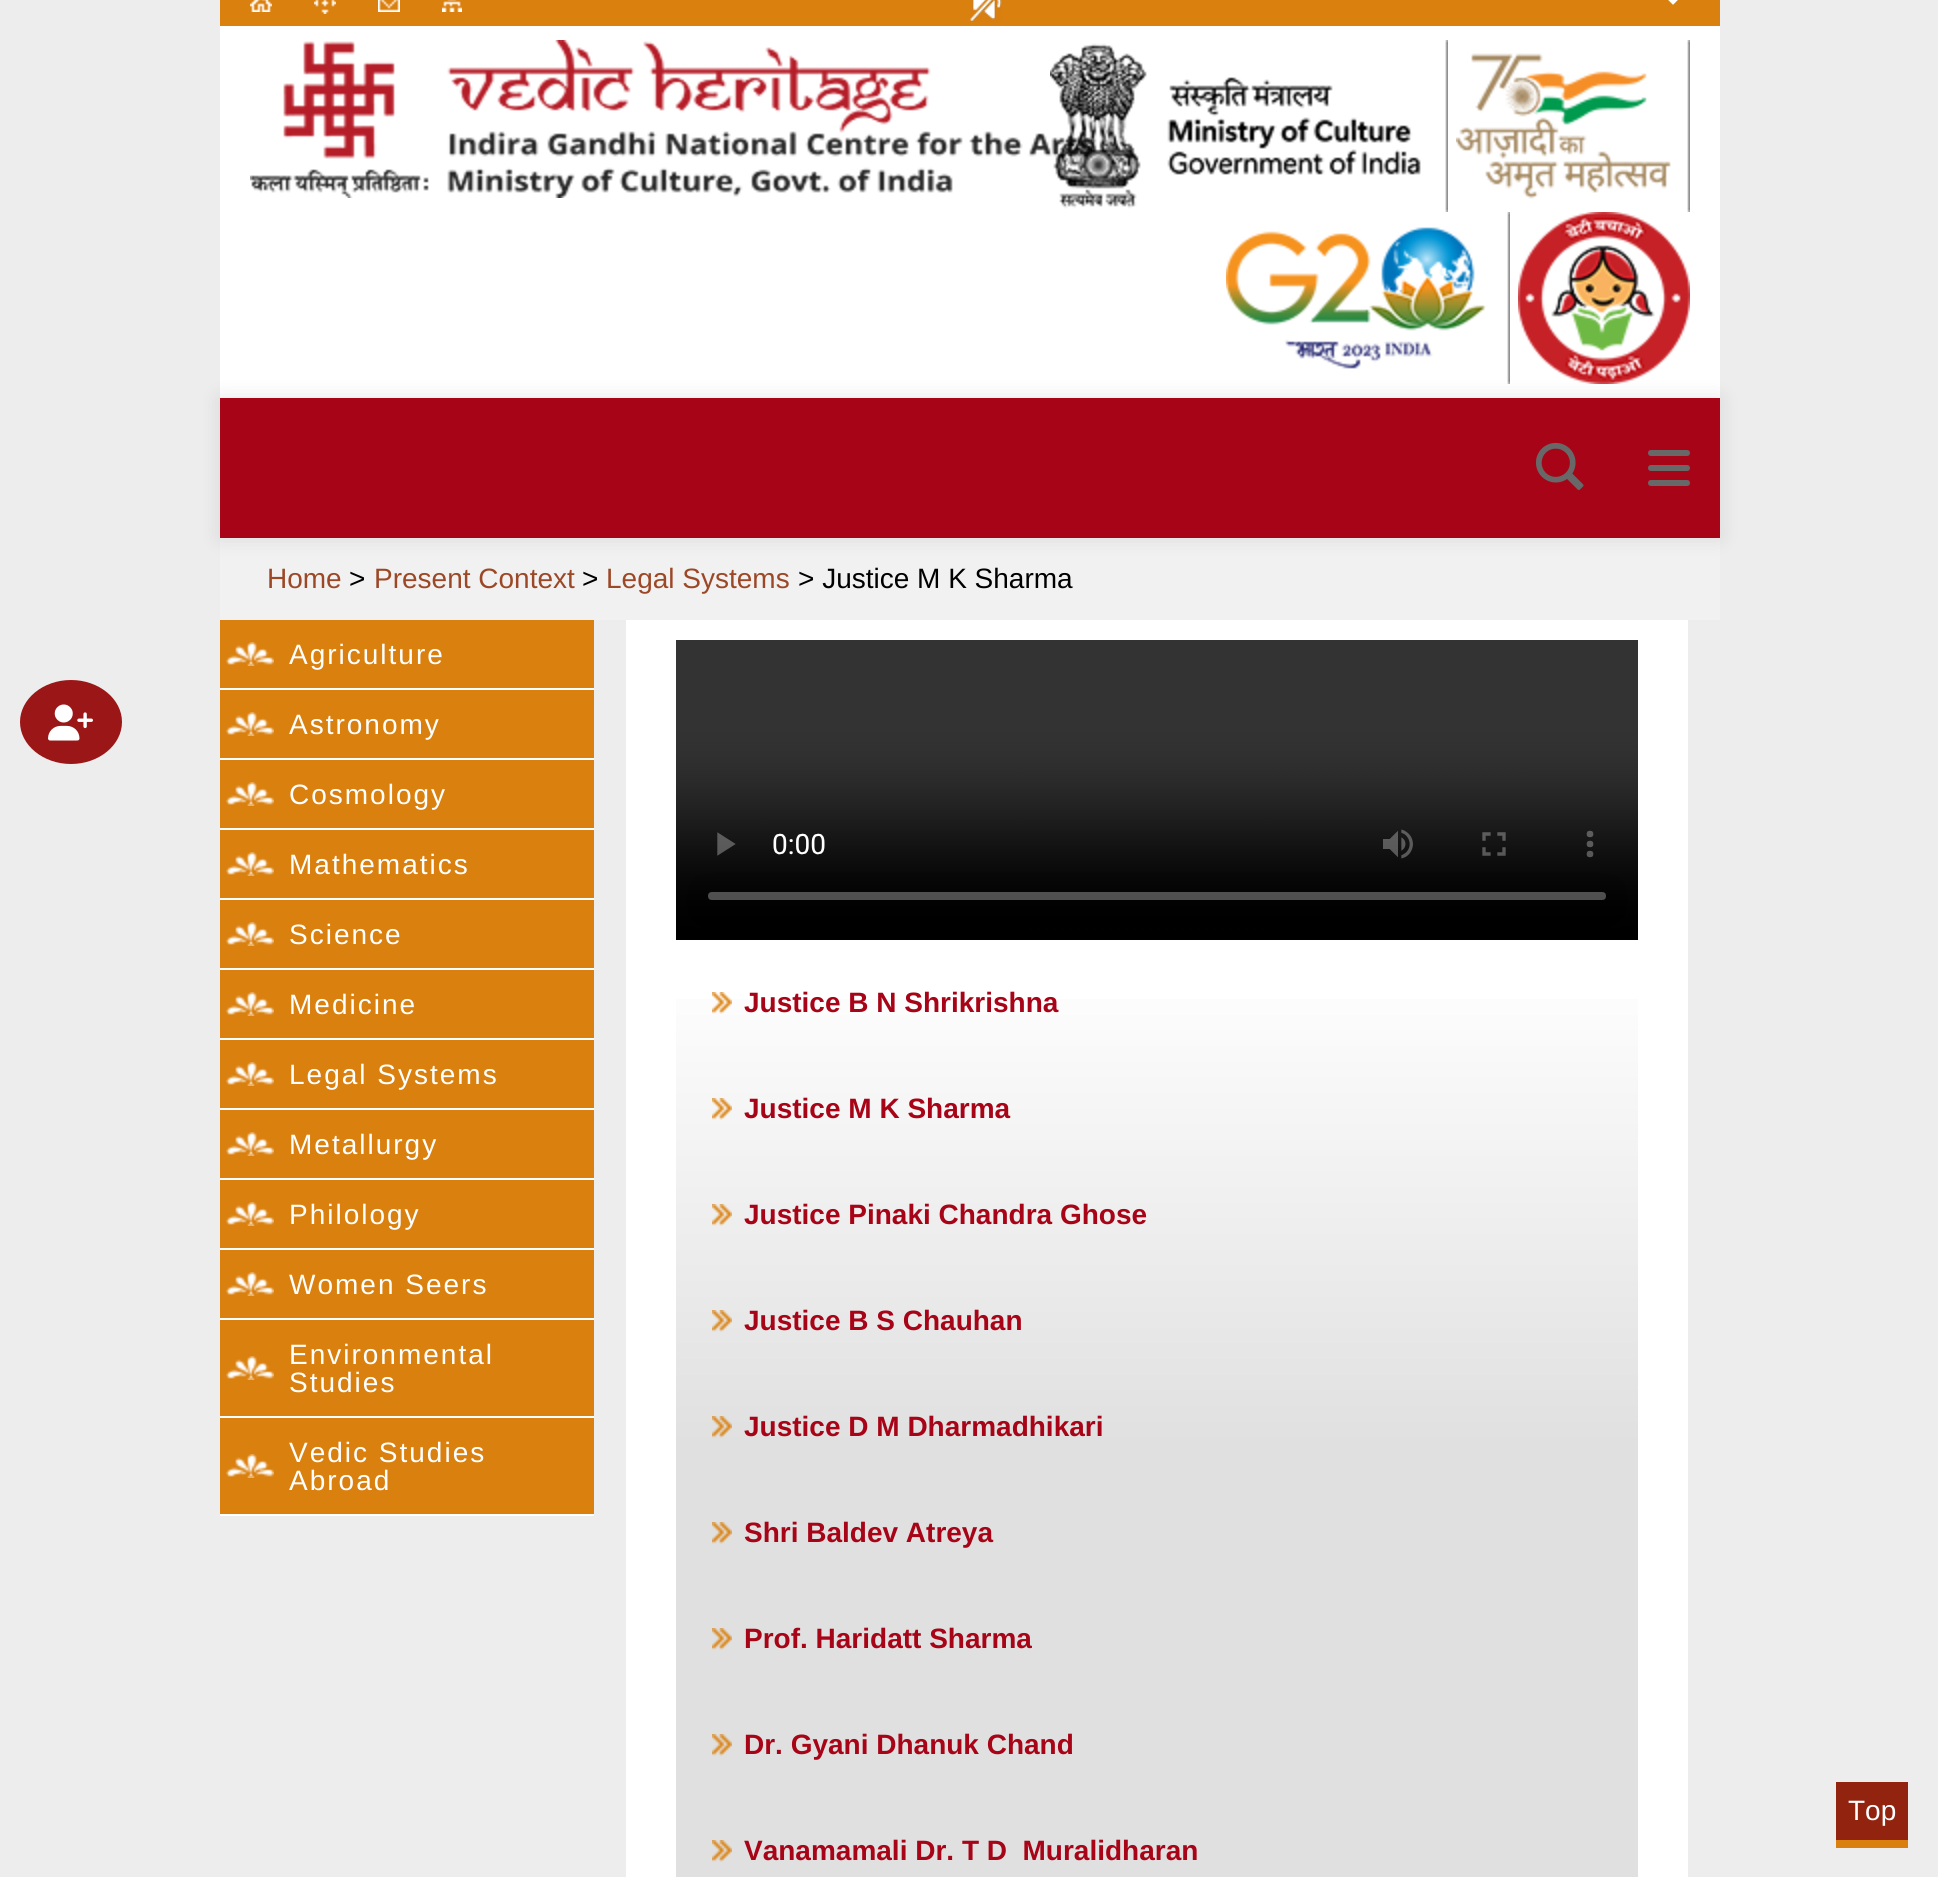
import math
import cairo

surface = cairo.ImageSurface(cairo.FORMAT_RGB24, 1938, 1877)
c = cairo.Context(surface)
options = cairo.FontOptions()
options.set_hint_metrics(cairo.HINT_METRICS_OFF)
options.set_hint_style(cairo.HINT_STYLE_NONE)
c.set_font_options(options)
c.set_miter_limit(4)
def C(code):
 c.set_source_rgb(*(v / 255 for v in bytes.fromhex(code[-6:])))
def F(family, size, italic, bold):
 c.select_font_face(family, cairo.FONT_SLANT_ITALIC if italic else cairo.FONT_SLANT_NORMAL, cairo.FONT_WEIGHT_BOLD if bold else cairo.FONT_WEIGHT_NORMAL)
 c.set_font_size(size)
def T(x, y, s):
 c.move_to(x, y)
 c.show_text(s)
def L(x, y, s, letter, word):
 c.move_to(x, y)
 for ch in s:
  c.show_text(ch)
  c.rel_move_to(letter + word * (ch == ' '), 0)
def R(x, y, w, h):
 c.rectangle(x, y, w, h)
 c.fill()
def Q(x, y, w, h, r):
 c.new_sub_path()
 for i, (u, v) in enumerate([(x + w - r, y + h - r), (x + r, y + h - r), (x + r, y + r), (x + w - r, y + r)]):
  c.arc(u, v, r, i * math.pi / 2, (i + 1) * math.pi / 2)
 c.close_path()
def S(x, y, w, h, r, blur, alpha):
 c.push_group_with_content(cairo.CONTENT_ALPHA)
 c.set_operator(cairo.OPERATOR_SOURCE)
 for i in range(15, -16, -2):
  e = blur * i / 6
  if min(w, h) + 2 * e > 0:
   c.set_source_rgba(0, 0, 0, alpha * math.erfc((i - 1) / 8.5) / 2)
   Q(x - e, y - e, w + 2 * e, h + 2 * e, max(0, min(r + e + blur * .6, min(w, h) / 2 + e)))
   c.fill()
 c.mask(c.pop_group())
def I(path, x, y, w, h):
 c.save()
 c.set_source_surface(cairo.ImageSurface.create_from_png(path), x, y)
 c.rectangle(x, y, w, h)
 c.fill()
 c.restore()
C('ededed')
c.paint()
C('da800e')
R(220,0,1500,26)
I('1.png',250,0,22,12)
I('2.png',314,0,22,14)
I('3.png',378,0,22,12)
I('4.png',442,0,20,12)
I('5.png',970,0,32,22)
c.new_path()
c.move_to(1665,-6)
c.line_to(1673,2)
c.line_to(1681,-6)
C('ffffff')
c.set_line_width(4)
c.stroke()
R(220,26,1500,372)
I('6.png',250,40,842,158)
I('7.png',1050,40,398,172)
I('8.png',1456,40,234,172)
I('9.png',1226,212,284,172)
I('10.png',1518,212,172,172)
C('a70417')
R(220,398,1500,140)
C('f1f1f1')
R(220,538,1500,82)
c.save()
c.set_fill_rule(cairo.FILL_RULE_EVEN_ODD)
c.new_path()
c.move_to(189,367)
c.line_to(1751,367)
c.line_to(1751,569)
c.line_to(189,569)
c.close_path()
c.move_to(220,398)
c.line_to(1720,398)
c.line_to(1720,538)
c.line_to(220,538)
c.close_path()
c.clip()
C('000000')
S(220,398,1500,140,0,10,.1)
c.restore()
I('11.png',1536,442,48,48)
I('12.png',1648,450,42,36)
C('9b1717')
c.new_path()
c.move_to(71,680)
c.curve_to(99,680,122,699,122,722)
c.curve_to(122,745,99,764,71,764)
c.curve_to(43,764,20,745,20,722)
c.curve_to(20,699,43,680,71,680)
c.close_path()
c.fill()
I('13.png',48,704,45,37)
F('Liberation Sans',28,0,0)
C('9c4827')
T(267,588,'Home')
C('000000')
T(349,588,'>')
C('9c4827')
T(374,588,'Present Context')
C('000000')
T(582,588,'>')
C('9c4827')
T(606,588,'Legal Systems')
C('000000')
T(798,588,'> Justice M K Sharma')
C('da800e')
R(220,620,374,68)
I('14.png',226,642,48,24)
C('ffffff')
R(220,688,374,2)
L(289,664,'Agriculture',2,0)
C('da800e')
R(220,690,374,68)
I('14.png',226,712,48,24)
C('ffffff')
R(220,758,374,2)
L(289,734,'Astronomy',2,0)
C('da800e')
R(220,760,374,68)
I('14.png',226,782,48,24)
C('ffffff')
R(220,828,374,2)
L(289,804,'Cosmology',2,0)
C('da800e')
R(220,830,374,68)
I('14.png',226,852,48,24)
C('ffffff')
R(220,898,374,2)
L(289,874,'Mathematics',2,0)
C('da800e')
R(220,900,374,68)
I('14.png',226,922,48,24)
C('ffffff')
R(220,968,374,2)
L(289,944,'Science',2,0)
C('da800e')
R(220,970,374,68)
I('14.png',226,992,48,24)
C('ffffff')
R(220,1038,374,2)
L(289,1014,'Medicine',2,0)
C('da800e')
R(220,1040,374,68)
I('14.png',226,1062,48,24)
C('ffffff')
R(220,1108,374,2)
L(289,1084,'Legal Systems',2,0)
C('da800e')
R(220,1110,374,68)
I('14.png',226,1132,48,24)
C('ffffff')
R(220,1178,374,2)
L(289,1154,'Metallurgy',2,0)
C('da800e')
R(220,1180,374,68)
I('14.png',226,1202,48,24)
C('ffffff')
R(220,1248,374,2)
L(289,1224,'Philology',2,0)
C('da800e')
R(220,1250,374,68)
I('14.png',226,1272,48,24)
C('ffffff')
R(220,1318,374,2)
L(289,1294,'Women Seers',2,0)
C('da800e')
R(220,1320,374,96)
I('14.png',226,1356,48,24)
C('ffffff')
R(220,1416,374,2)
L(289,1364,'Environmental',2,0)
L(289,1392,'Studies',2,0)
C('da800e')
R(220,1418,374,96)
I('14.png',226,1454,48,24)
C('ffffff')
R(220,1514,374,2)
L(289,1462,'Vedic Studies',2,0)
L(289,1490,'Abroad',2,0)
R(626,620,1062,1257)
I('15.png',676,640,962,300)
gradient = cairo.LinearGradient(1157,960,1157,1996)
gradient.add_color_stop_rgba(0,1,1,1,1)
gradient.add_color_stop_rgba(.47,0.878,0.878,0.878,1)
gradient.add_color_stop_rgba(1,0.878,0.878,0.878,1)
c.set_source(gradient)
R(676,999,962,878)
I('16.png',712,992,20,22)
F('Liberation Sans',28,0,1)
C('a70417')
T(744,1012,'Justice B N Shrikrishna')
I('17.png',712,1098,20,22)
T(744,1118,'Justice M K Sharma')
I('18.png',712,1204,20,22)
T(744,1224,'Justice Pinaki Chandra Ghose')
I('19.png',712,1310,20,22)
T(744,1330,'Justice B S Chauhan')
I('20.png',712,1416,20,22)
T(744,1436,'Justice D M Dharmadhikari')
I('21.png',712,1522,20,22)
T(744,1542,'Shri Baldev Atreya')
I('21.png',712,1628,20,22)
T(744,1648,'Prof. Haridatt Sharma')
I('21.png',712,1734,20,22)
T(744,1754,'Dr. Gyani Dhanuk Chand')
I('21.png',712,1840,20,22)
T(744,1860,'Vanamamali Dr. T D  Muralidharan')
C('92230f')
R(1836,1782,72,58)
C('da800e')
R(1836,1840,72,8)
F('Liberation Sans',28,0,0)
C('ffffff')
T(1848,1820,'Top')
surface.write_to_png('o.png')
